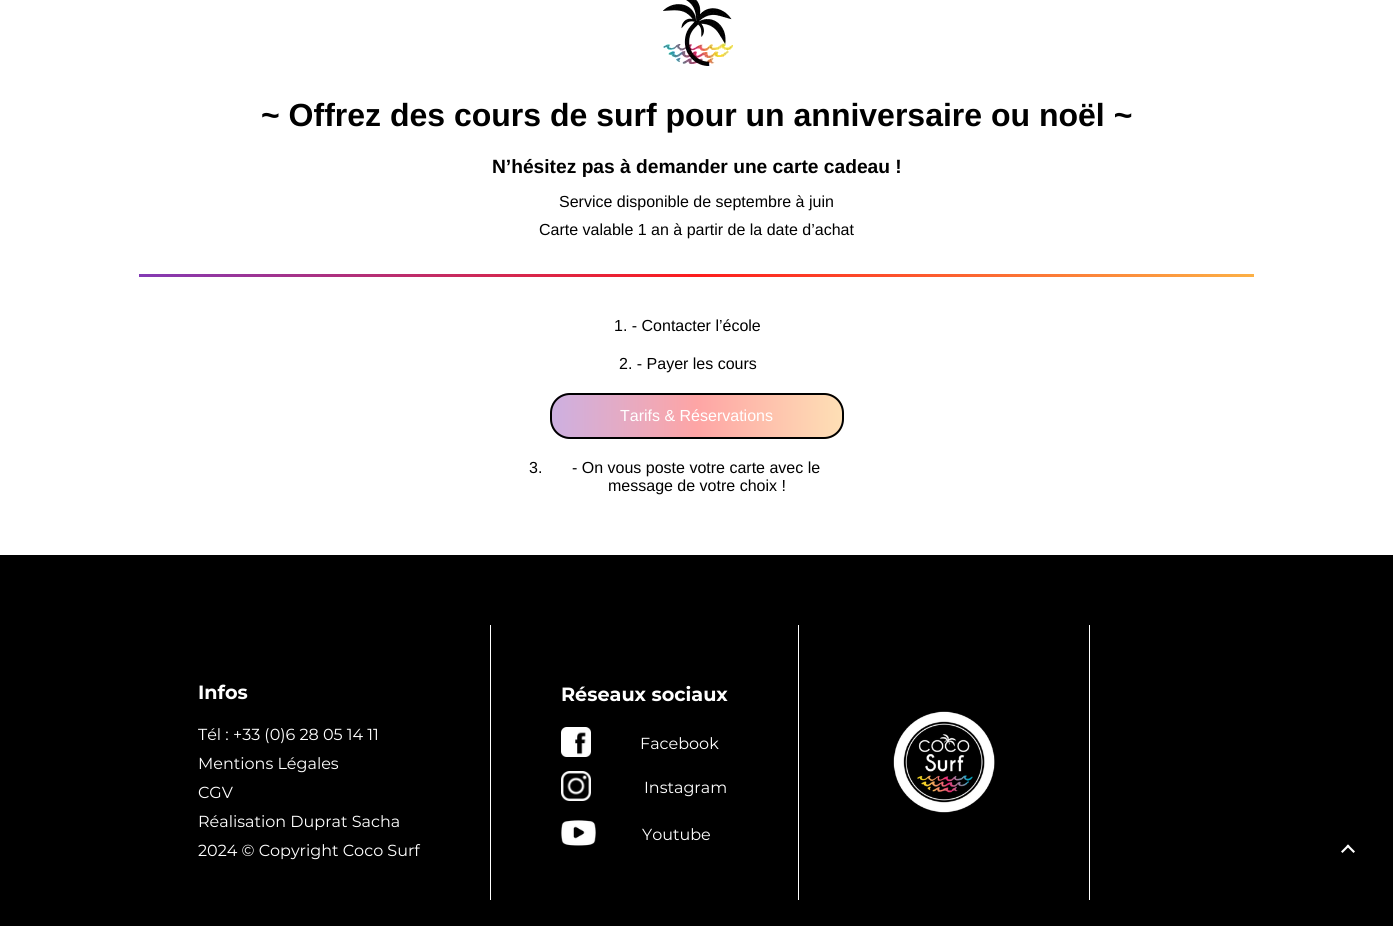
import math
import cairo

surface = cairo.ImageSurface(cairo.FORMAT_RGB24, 1393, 926)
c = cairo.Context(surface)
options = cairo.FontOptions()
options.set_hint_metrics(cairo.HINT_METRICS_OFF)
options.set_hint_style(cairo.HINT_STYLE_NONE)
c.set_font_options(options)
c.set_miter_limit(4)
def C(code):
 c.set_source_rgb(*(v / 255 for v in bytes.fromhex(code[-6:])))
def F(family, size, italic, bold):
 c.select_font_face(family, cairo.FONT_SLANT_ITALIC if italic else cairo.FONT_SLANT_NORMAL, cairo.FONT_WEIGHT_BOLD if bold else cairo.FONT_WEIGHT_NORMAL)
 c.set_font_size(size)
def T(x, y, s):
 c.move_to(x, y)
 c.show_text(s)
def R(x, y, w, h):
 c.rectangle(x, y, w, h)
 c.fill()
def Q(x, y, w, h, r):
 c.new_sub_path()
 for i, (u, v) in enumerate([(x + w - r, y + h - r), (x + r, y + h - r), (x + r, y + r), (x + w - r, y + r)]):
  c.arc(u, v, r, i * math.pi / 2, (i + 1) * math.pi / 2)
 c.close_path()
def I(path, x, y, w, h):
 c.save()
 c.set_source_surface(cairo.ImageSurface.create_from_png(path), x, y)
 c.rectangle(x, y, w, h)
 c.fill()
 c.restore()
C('ffffff')
c.paint()
I('1.png',663,0,70,66)
F('Liberation Sans',32,0,1)
C('000000')
T(261,126,'~ Offrez des cours de surf pour un anniversaire ou noël ~')
F('Liberation Sans',19.2,0,1)
T(492,173,'N’hésitez pas à demander une carte cadeau !')
F('Liberation Sans',16,0,0)
T(559,207,'Service disponible de septembre à juin')
T(539,235,'Carte valable 1 an à partir de la date d’achat')
gradient = cairo.LinearGradient(139,276,1254,275)
gradient.add_color_stop_rgba(0,0.514,0.227,0.706,1)
gradient.add_color_stop_rgba(.5,0.992,0.114,0.114,1)
gradient.add_color_stop_rgba(1,0.988,0.69,0.271,1)
c.set_source(gradient)
R(139,274,1115,3)
C('000000')
T(614,331,'1. - Contacter l’école')
T(619,369,'2. - Payer les cours')
c.save()
Q(550,393,294,46,20)
c.clip()
gradient = cairo.LinearGradient(552,416,842,416)
gradient.add_color_stop_rgba(0,0.804,0.69,0.882,1)
gradient.add_color_stop_rgba(.5,0.996,0.647,0.647,1)
gradient.add_color_stop_rgba(1,0.996,0.875,0.71,1)
c.set_source(gradient)
R(552,393,290,46)
c.restore()
Q(551,394,292,44,19)
c.stroke()
C('ffffff')
T(620,421,'Tarifs & Réservations')
C('000000')
T(529,473,'3.')
T(572,473,'- On vous poste votre carte avec le')
T(608,491,'message de votre choix !')
R(0,555,1393,371)
C('ffffff')
R(490,625,1,275)
F('Montserrat',19.2,0,1)
T(198,699,'Infos')
F('Montserrat',16,0,0)
T(198,740,'Tél : +33 (0)6 28 05 14 11')
T(198,769,'Mentions Légales')
T(198,798,'CGV')
T(198,827,'Réalisation Duprat Sacha')
T(198,856,'2024 © Copyright Coco Surf')
R(798,625,1,275)
F('Montserrat',19.2,0,1)
T(561,701,'Réseaux sociaux')
I('2.png',561,727,30,30)
F('Montserrat',16,0,0)
T(640,749,'Facebook')
I('3.png',561,771,30,30)
T(644,793,'Instagram')
I('4.png',561,820,35,26)
T(642,840,'Youtube')
R(1089,625,1,275)
I('5.png',893,711,102,102)
c.new_path()
c.move_to(1341,851.5)
c.line_to(1348,844.5)
c.line_to(1349.5,846)
c.line_to(1342.5,853)
c.close_path()
c.fill()
c.new_path()
c.move_to(1348,844.5)
c.line_to(1355,851.5)
c.line_to(1353.5,853)
c.line_to(1346.5,846)
c.close_path()
c.fill()
surface.write_to_png('o.png')
